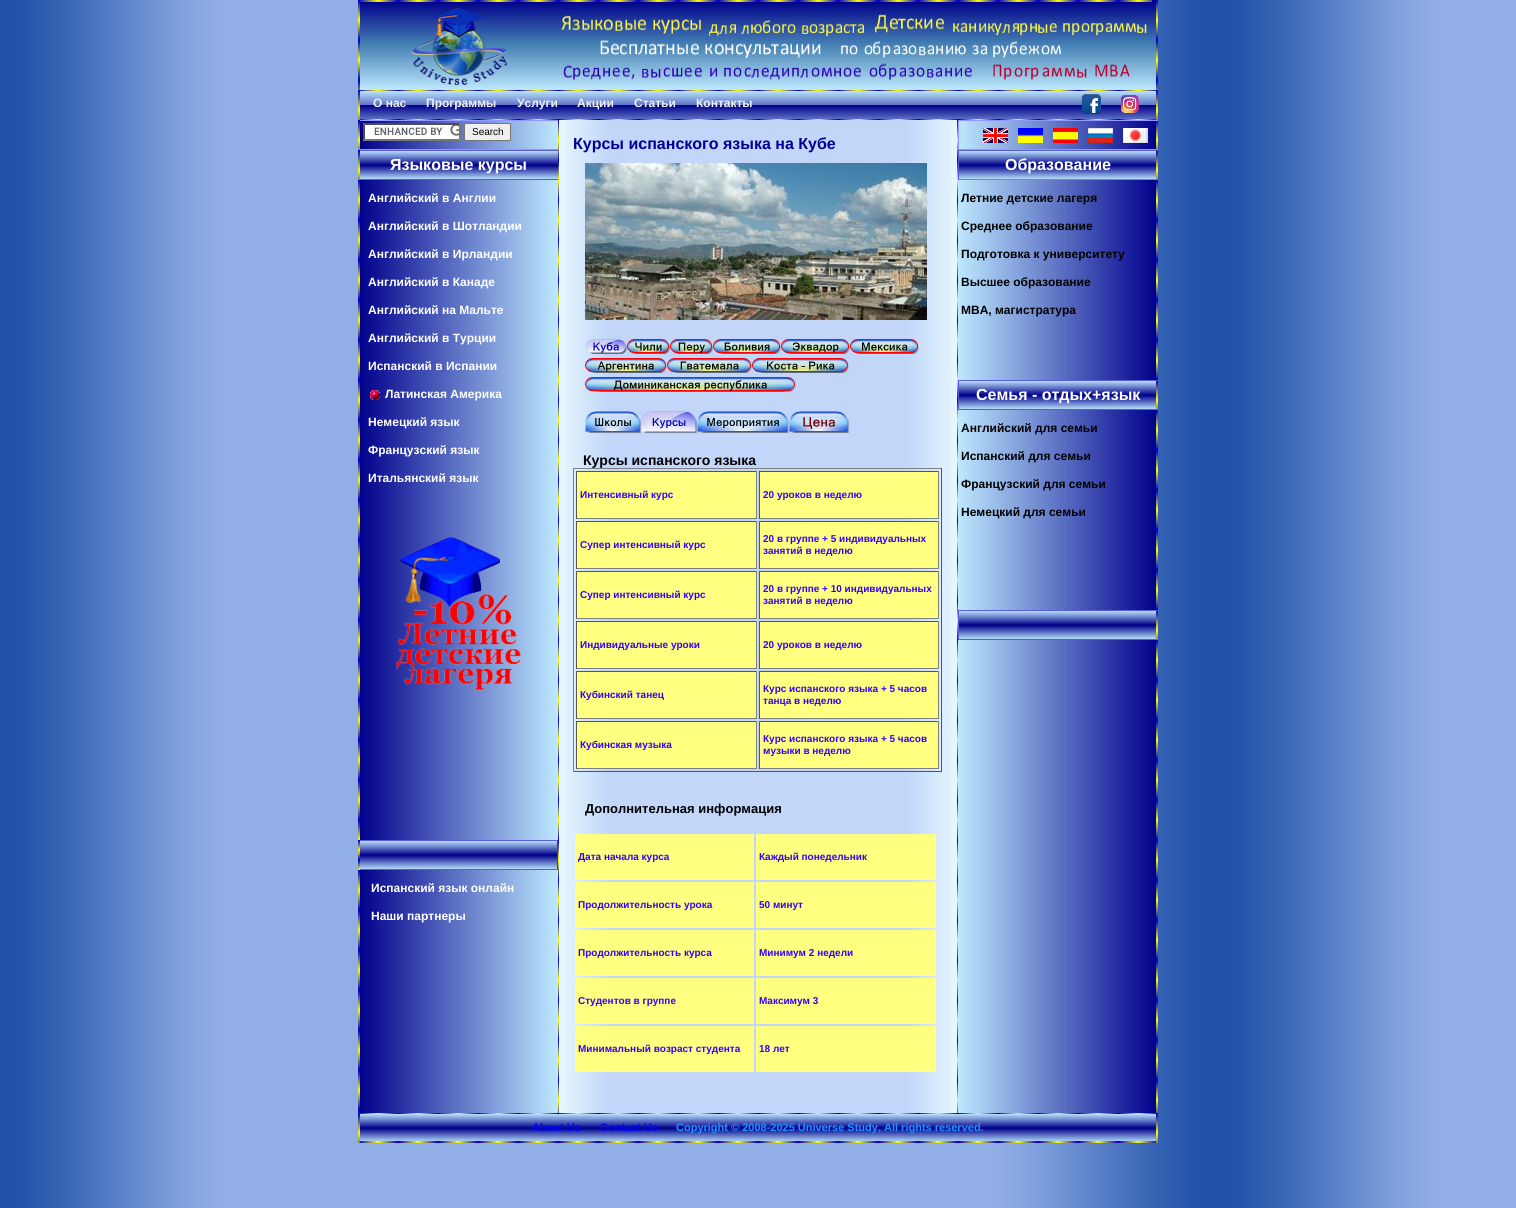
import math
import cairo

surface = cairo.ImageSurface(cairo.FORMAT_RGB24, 1516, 1208)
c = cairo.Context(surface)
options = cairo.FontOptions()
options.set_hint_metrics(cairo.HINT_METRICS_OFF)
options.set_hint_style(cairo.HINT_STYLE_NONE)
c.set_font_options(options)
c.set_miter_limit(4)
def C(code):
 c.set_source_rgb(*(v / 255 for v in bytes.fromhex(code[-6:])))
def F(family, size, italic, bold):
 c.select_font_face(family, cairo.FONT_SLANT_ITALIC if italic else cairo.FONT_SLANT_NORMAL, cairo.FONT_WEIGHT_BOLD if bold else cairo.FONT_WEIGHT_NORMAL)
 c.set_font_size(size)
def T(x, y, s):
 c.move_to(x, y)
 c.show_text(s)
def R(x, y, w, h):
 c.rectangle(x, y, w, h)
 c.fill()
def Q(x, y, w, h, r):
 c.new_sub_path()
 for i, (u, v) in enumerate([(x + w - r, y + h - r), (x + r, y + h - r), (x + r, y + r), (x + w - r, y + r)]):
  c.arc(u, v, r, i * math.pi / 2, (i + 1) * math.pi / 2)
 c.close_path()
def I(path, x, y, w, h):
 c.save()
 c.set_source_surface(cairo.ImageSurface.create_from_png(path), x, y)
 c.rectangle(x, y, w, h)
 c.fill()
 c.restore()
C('ffffff')
c.paint()
I('1.png',0,0,1516,1208)
I('2.png',360,2,198,88)
I('3.png',360,0,198,2)
I('4.png',358,0,2,90)
I('5.png',411,7,96,78)
C('00008b')
R(1152,0,4,2)
I('6.png',558,2,598,88)
I('4.png',1156,0,2,90)
I('7.png',558,0,594,2)
I('8.png',561,14,586,66)
I('9.png',360,91,796,28)
I('10.png',360,119,796,1)
I('11.png',1156,90,2,30)
I('12.png',360,90,797,1)
I('11.png',358,90,2,30)
F('Liberation Sans',12,0,1)
C('f0f0f0')
T(373,107,'О нас')
T(426,107,'Программы')
T(517,107,'Услуги')
T(577,107,'Акции')
T(634,107,'Статьи')
T(696,107,'Контакты')
I('13.png',1081,94,20,20)
I('14.png',1121,95,18,18)
I('15.png',360,121,198,28)
C('9696ff')
R(358,149,200,1)
R(358,120,200,1)
I('11.png',358,120,2,30)
C('ffffff')
R(363,123,98,18)
I('16.png',374,124,86,12)
C('4f4f4f')
c.new_path()
c.move_to(363,123)
c.line_to(461,123)
c.line_to(459,125)
c.line_to(365,125)
c.close_path()
c.fill()
C('767676')
c.new_path()
c.move_to(461,123)
c.line_to(461,141)
c.line_to(459,139)
c.line_to(459,125)
c.close_path()
c.fill()
c.new_path()
c.move_to(461,141)
c.line_to(363,141)
c.line_to(365,139)
c.line_to(459,139)
c.close_path()
c.fill()
C('4f4f4f')
c.new_path()
c.move_to(363,141)
c.line_to(363,123)
c.line_to(365,125)
c.line_to(365,139)
c.close_path()
c.fill()
C('efefef')
Q(464.5,123.5,46,17,1.5)
c.fill_preserve()
C('767676')
c.set_line_width(1)
c.stroke()
F('Liberation Sans',10,0,0)
C('000000')
T(472,135,'Search')
I('17.png',360,151,198,28)
C('5a5ada')
R(358,179,200,1)
R(358,150,200,1)
I('11.png',358,150,2,30)
F('Liberation Sans',16,0,1)
C('ffffff')
T(390,170,'Языковые курсы')
I('18.png',360,180,198,660)
I('19.png',358,180,2,660)
F('Liberation Sans',12,0,1)
T(368,202,'Английский в Англии')
T(368,230,'Английский в Шотландии')
T(368,258,'Английский в Ирландии')
T(368,286,'Английский в Канаде')
T(368,314,'Английский на Мальте')
T(368,342,'Английский в Турции')
T(368,370,'Испанский в Испании')
I('20.png',370,390,10,10)
T(385,398,'Латинская Америка')
T(368,426,'Немецкий язык')
T(368,454,'Французский язык')
T(368,482,'Итальянский язык')
I('21.png',396,537,125,154)
I('22.png',360,841,197,28)
C('5a5ada')
R(358,869,200,1)
C('3c3cbc')
R(557,840,1,30)
C('5a5ada')
R(358,840,200,1)
I('23.png',358,840,2,30)
I('24.png',360,870,198,243)
I('25.png',358,870,2,243)
C('ffffff')
T(371,892,'Испанский язык онлайн')
T(371,920,'Наши партнеры')
I('26.png',559,120,398,993)
I('27.png',957,120,1,993)
I('27.png',558,120,1,993)
F('Liberation Sans',16,0,1)
C('000099')
T(573,149,'Курсы испанского языка на Кубе')
I('28.png',585,163,342,157)
I('29.png',585,339,42,15)
I('30.png',627,339,43,15)
I('31.png',670,339,43,15)
I('32.png',713,339,68,15)
I('33.png',781,339,69,15)
I('34.png',850,339,69,15)
I('35.png',585,358,82,15)
I('36.png',667,358,85,15)
I('37.png',752,358,97,15)
I('38.png',585,377,211,15)
I('39.png',585,411,56,22)
I('40.png',641,411,56,22)
I('41.png',697,411,92,22)
I('42.png',789,411,60,22)
F('Liberation Sans',14,0,1)
C('000000')
T(583,465,'Курсы испанского языка')
C('808080')
R(573,468,369,1)
C('555555')
R(941,468,1,304)
R(573,771,369,1)
C('808080')
R(573,468,1,304)
C('ffff80')
R(577,472,179,46)
C('555555')
R(576,471,181,1)
C('808080')
R(756,471,1,48)
R(576,518,181,1)
C('555555')
R(576,471,1,48)
F('Liberation Sans',10,0,1)
C('3300ff')
T(580,498,'Интенсивный курс')
C('ffff80')
R(760,472,178,46)
C('555555')
R(759,471,180,1)
C('808080')
R(938,471,1,48)
R(759,518,180,1)
C('555555')
R(759,471,1,48)
C('3300ff')
T(763,498,'20 уроков в неделю')
C('ffff80')
R(577,522,179,46)
C('555555')
R(576,521,181,1)
C('808080')
R(756,521,1,48)
R(576,568,181,1)
C('555555')
R(576,521,1,48)
C('3300ff')
T(580,548,'Супер интенсивный курс')
C('ffff80')
R(760,522,178,46)
C('555555')
R(759,521,180,1)
C('808080')
R(938,521,1,48)
R(759,568,180,1)
C('555555')
R(759,521,1,48)
C('3300ff')
T(763,542,'20 в группе + 5 индивидуальных')
T(763,554,'занятий в неделю')
C('ffff80')
R(577,572,179,46)
C('555555')
R(576,571,181,1)
C('808080')
R(756,571,1,48)
R(576,618,181,1)
C('555555')
R(576,571,1,48)
C('3300ff')
T(580,598,'Супер интенсивный курс')
C('ffff80')
R(760,572,178,46)
C('555555')
R(759,571,180,1)
C('808080')
R(938,571,1,48)
R(759,618,180,1)
C('555555')
R(759,571,1,48)
C('3300ff')
T(763,592,'20 в группе + 10 индивидуальных')
T(763,604,'занятий в неделю')
C('ffff80')
R(577,622,179,46)
C('555555')
R(576,621,181,1)
C('808080')
R(756,621,1,48)
R(576,668,181,1)
C('555555')
R(576,621,1,48)
C('3300ff')
T(580,648,'Индивидуальные уроки')
C('ffff80')
R(760,622,178,46)
C('555555')
R(759,621,180,1)
C('808080')
R(938,621,1,48)
R(759,668,180,1)
C('555555')
R(759,621,1,48)
C('3300ff')
T(763,648,'20 уроков в неделю')
C('ffff80')
R(577,672,179,46)
C('555555')
R(576,671,181,1)
C('808080')
R(756,671,1,48)
R(576,718,181,1)
C('555555')
R(576,671,1,48)
C('3300ff')
T(580,698,'Кубинский танец')
C('ffff80')
R(760,672,178,46)
C('555555')
R(759,671,180,1)
C('808080')
R(938,671,1,48)
R(759,718,180,1)
C('555555')
R(759,671,1,48)
C('3300ff')
T(763,692,'Курс испанского языка + 5 часов')
T(763,704,'танца в неделю')
C('ffff80')
R(577,722,179,46)
C('555555')
R(576,721,181,1)
C('808080')
R(756,721,1,48)
R(576,768,181,1)
C('555555')
R(576,721,1,48)
C('3300ff')
T(580,748,'Кубинская музыка')
C('ffff80')
R(760,722,178,46)
C('555555')
R(759,721,180,1)
C('808080')
R(938,721,1,48)
R(759,768,180,1)
C('555555')
R(759,721,1,48)
C('3300ff')
T(763,742,'Курс испанского языка + 5 часов')
T(763,754,'музыки в неделю')
F('Liberation Sans',13,0,1)
C('000000')
T(585,813,'Дополнительная информация')
C('ffff80')
R(575,834,179,46)
F('Liberation Sans',10,0,1)
C('3300ff')
T(578,860,'Дата начала курса')
C('ffff80')
R(756,834,180,46)
C('3300ff')
T(759,860,'Каждый понедельник')
C('ffff80')
R(575,882,179,46)
C('3300ff')
T(578,908,'Продолжительность урока')
C('ffff80')
R(756,882,180,46)
C('3300ff')
T(759,908,'50 минут')
C('ffff80')
R(575,930,179,46)
C('3300ff')
T(578,956,'Продолжительность курса')
C('ffff80')
R(756,930,180,46)
C('3300ff')
T(759,956,'Минимум 2 недели')
C('ffff80')
R(575,978,179,46)
C('3300ff')
T(578,1004,'Студентов в группе')
C('ffff80')
R(756,978,180,46)
C('3300ff')
T(759,1004,'Максимум 3')
C('ffff80')
R(575,1026,179,46)
C('3300ff')
T(578,1052,'Минимальный возраст студента')
C('ffff80')
R(756,1026,180,46)
C('3300ff')
T(759,1052,'18 лет')
I('43.png',959,121,197,28)
C('9696ff')
R(958,149,200,1)
I('44.png',1156,121,2,29)
R(958,120,200,1)
R(958,121,1,28)
I('45.png',983,128,25,15)
I('46.png',1018,128,25,15)
I('47.png',1053,128,25,15)
I('48.png',1088,128,25,15)
I('49.png',1123,128,25,15)
I('22.png',959,151,197,28)
C('7878f8')
R(958,179,200,1)
I('44.png',1156,151,2,29)
C('5a5ada')
R(958,150,200,1)
R(958,151,1,29)
F('Liberation Sans',16,0,1)
C('ffffff')
T(1005,170,'Образование')
I('50.png',958,180,198,200)
I('51.png',1156,180,2,200)
F('Liberation Sans',12,0,1)
C('000000')
T(961,202,'Летние детские лагеря')
T(961,230,'Среднее образование')
T(961,258,'Подготовка к университету')
T(961,286,'Высшее образование')
T(961,314,'MBA, магистратура')
I('22.png',959,381,197,28)
C('5a5ada')
R(958,409,200,1)
I('44.png',1156,381,2,29)
R(958,380,200,1)
R(958,381,1,28)
F('Liberation Sans',16,0,1)
C('ffffff')
T(976,400,'Семья - отдых+язык')
I('50.png',958,410,198,200)
I('51.png',1156,410,2,200)
F('Liberation Sans',12,0,1)
C('000000')
T(961,432,'Английский для семьи')
T(961,460,'Испанский для семьи')
T(961,488,'Французский для семьи')
T(961,516,'Немецкий для семьи')
I('22.png',959,611,197,28)
C('5a5ada')
R(958,639,200,1)
I('44.png',1156,611,2,29)
R(958,610,200,1)
R(958,611,1,28)
I('52.png',958,640,198,473)
I('53.png',1156,640,2,473)
I('54.png',360,1114,796,27)
I('55.png',360,1141,796,2)
I('11.png',1156,1113,2,30)
I('12.png',360,1113,797,1)
I('11.png',358,1113,2,30)
F('Liberation Sans',11,0,1)
C('0000ff')
T(532,1131,'About Us')
T(600,1131,'Contact Us')
C('1e90ff')
T(676,1131,'Copyright © 2008-2025 Universe Study, All rights reserved.')
surface.write_to_png('o.png')
